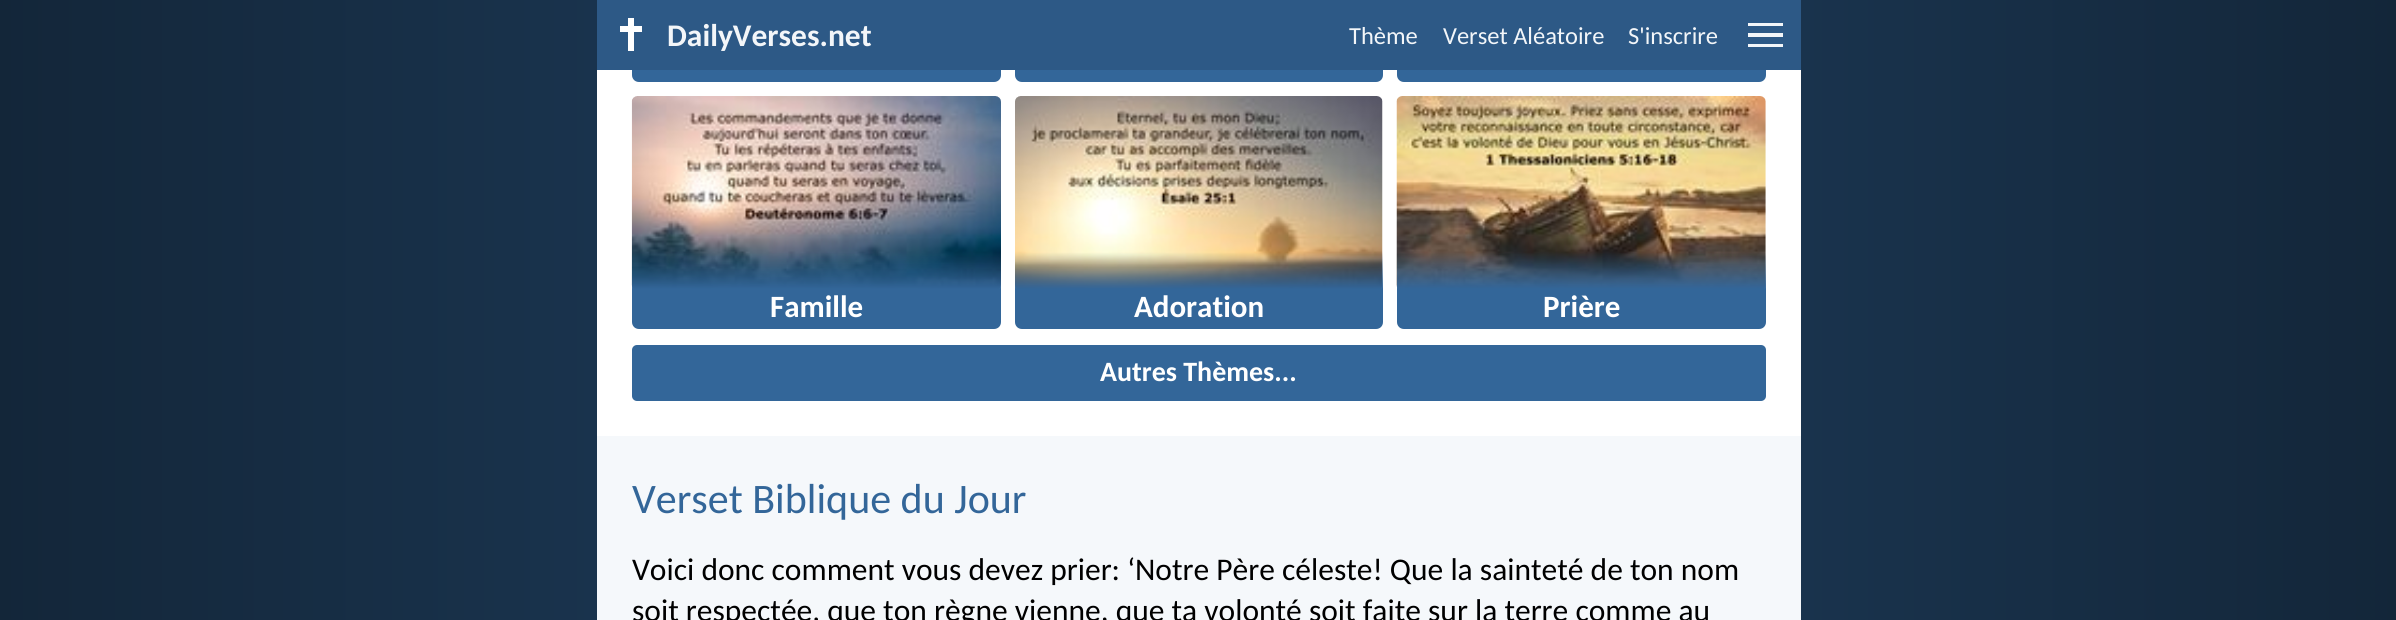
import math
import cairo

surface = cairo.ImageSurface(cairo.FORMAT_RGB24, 2396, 620)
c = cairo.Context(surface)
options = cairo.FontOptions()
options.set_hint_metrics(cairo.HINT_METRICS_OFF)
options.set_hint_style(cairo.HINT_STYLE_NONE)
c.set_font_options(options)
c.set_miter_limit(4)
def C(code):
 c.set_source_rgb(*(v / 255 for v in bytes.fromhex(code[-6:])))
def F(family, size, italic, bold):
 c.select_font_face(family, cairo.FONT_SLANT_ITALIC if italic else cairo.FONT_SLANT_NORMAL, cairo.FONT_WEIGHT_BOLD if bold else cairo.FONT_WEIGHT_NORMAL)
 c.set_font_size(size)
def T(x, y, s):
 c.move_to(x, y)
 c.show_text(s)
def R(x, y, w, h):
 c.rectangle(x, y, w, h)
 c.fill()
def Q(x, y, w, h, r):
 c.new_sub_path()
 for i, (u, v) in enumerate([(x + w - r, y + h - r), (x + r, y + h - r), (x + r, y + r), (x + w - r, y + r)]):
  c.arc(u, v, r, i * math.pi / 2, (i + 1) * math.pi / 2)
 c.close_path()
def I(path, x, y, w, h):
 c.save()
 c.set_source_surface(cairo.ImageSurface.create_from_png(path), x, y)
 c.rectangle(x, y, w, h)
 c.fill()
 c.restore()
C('ffffff')
c.paint()
gradient = cairo.LinearGradient(0,-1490,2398,-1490)
gradient.add_color_stop_rgba(0,0.075,0.149,0.224,1)
gradient.add_color_stop_rgba(.25,0.098,0.2,0.302,1)
gradient.add_color_stop_rgba(.75,0.098,0.2,0.302,1)
gradient.add_color_stop_rgba(1,0.075,0.149,0.224,1)
c.set_source(gradient)
R(0,0,2396,620)
C('ffffff')
R(597,70,1204,366)
gradient = cairo.LinearGradient(816,5.2,816,82)
gradient.add_color_stop_rgba(0,0.2,0.4,0.6,0)
gradient.add_color_stop_rgba(.48,0.2,0.4,0.6,1)
c.set_source(gradient)
c.new_path()
c.move_to(632,5)
c.line_to(1001,5)
c.line_to(1001,75)
c.curve_to(1001,79,998,82,994,82)
c.line_to(639,82)
c.curve_to(635,82,632,79,632,75)
c.close_path()
c.fill()
gradient = cairo.LinearGradient(1199,5.2,1199,82)
gradient.add_color_stop_rgba(0,0.2,0.4,0.6,0)
gradient.add_color_stop_rgba(.48,0.2,0.4,0.6,1)
c.set_source(gradient)
c.new_path()
c.move_to(1015,5)
c.line_to(1383,5)
c.line_to(1383,75)
c.curve_to(1383,79,1380,82,1376,82)
c.line_to(1022,82)
c.curve_to(1018,82,1015,79,1015,75)
c.close_path()
c.fill()
gradient = cairo.LinearGradient(1581,5.2,1581,82)
gradient.add_color_stop_rgba(0,0.2,0.4,0.6,0)
gradient.add_color_stop_rgba(.48,0.2,0.4,0.6,1)
c.set_source(gradient)
c.new_path()
c.move_to(1397,5)
c.line_to(1766,5)
c.line_to(1766,75)
c.curve_to(1766,79,1763,82,1759,82)
c.line_to(1404,82)
c.curve_to(1400,82,1397,79,1397,75)
c.close_path()
c.fill()
C('2d5986')
R(597,0,1204,70)
C('ffffff')
R(628,18,6,33)
R(620,26,22,6)
F('Carlito',31.5,0,1)
C('f3f6f9')
T(667,46,'DailyVerses.net')
F('Carlito',24.5,0,0)
T(1349,44,'Thème')
T(1443,44,'Verset Aléatoire')
T(1628,44,'S\'inscrire')
R(1748,23,35,3)
R(1748,33,35,4)
R(1748,44,35,3)
I('1.png',631,96,370,193)
gradient = cairo.LinearGradient(816,252,816,329)
gradient.add_color_stop_rgba(0,0.2,0.4,0.6,0)
gradient.add_color_stop_rgba(.48,0.2,0.4,0.6,1)
c.set_source(gradient)
c.new_path()
c.move_to(632,252)
c.line_to(1001,252)
c.line_to(1001,322)
c.curve_to(1001,326,998,329,994,329)
c.line_to(639,329)
c.curve_to(635,329,632,326,632,322)
c.close_path()
c.fill()
F('Carlito',31,0,1)
C('ffffff')
T(770,317,'Famille')
I('2.png',1015,96,368,193)
gradient = cairo.LinearGradient(1199,252,1199,329)
gradient.add_color_stop_rgba(0,0.2,0.4,0.6,0)
gradient.add_color_stop_rgba(.48,0.2,0.4,0.6,1)
c.set_source(gradient)
c.new_path()
c.move_to(1015,252)
c.line_to(1383,252)
c.line_to(1383,322)
c.curve_to(1383,326,1380,329,1376,329)
c.line_to(1022,329)
c.curve_to(1018,329,1015,326,1015,322)
c.close_path()
c.fill()
C('ffffff')
T(1134,317,'Adoration')
I('3.png',1396,96,370,193)
gradient = cairo.LinearGradient(1581,252,1581,329)
gradient.add_color_stop_rgba(0,0.2,0.4,0.6,0)
gradient.add_color_stop_rgba(.48,0.2,0.4,0.6,1)
c.set_source(gradient)
c.new_path()
c.move_to(1397,252)
c.line_to(1766,252)
c.line_to(1766,322)
c.curve_to(1766,326,1763,329,1759,329)
c.line_to(1404,329)
c.curve_to(1400,329,1397,326,1397,322)
c.close_path()
c.fill()
C('ffffff')
T(1543,317,'Prière')
C('336699')
Q(632,345,1134,56,5)
c.fill()
F('Carlito',28,0,1)
C('ffffff')
T(1100,381,'Autres Thèmes...')
C('f5f8fb')
R(597,436,1204,184)
F('Carlito',42,0,0)
C('336699')
T(632,513,'Verset Biblique du Jour')
F('Carlito',31.5,0,0)
C('000000')
T(632,580,'Voici donc comment vous devez prier: ‘Notre Père céleste! Que la sainteté de ton nom')
T(632,621,'soit respectée, que ton règne vienne, que ta volonté soit faite sur la terre comme au')
surface.write_to_png('o.png')
